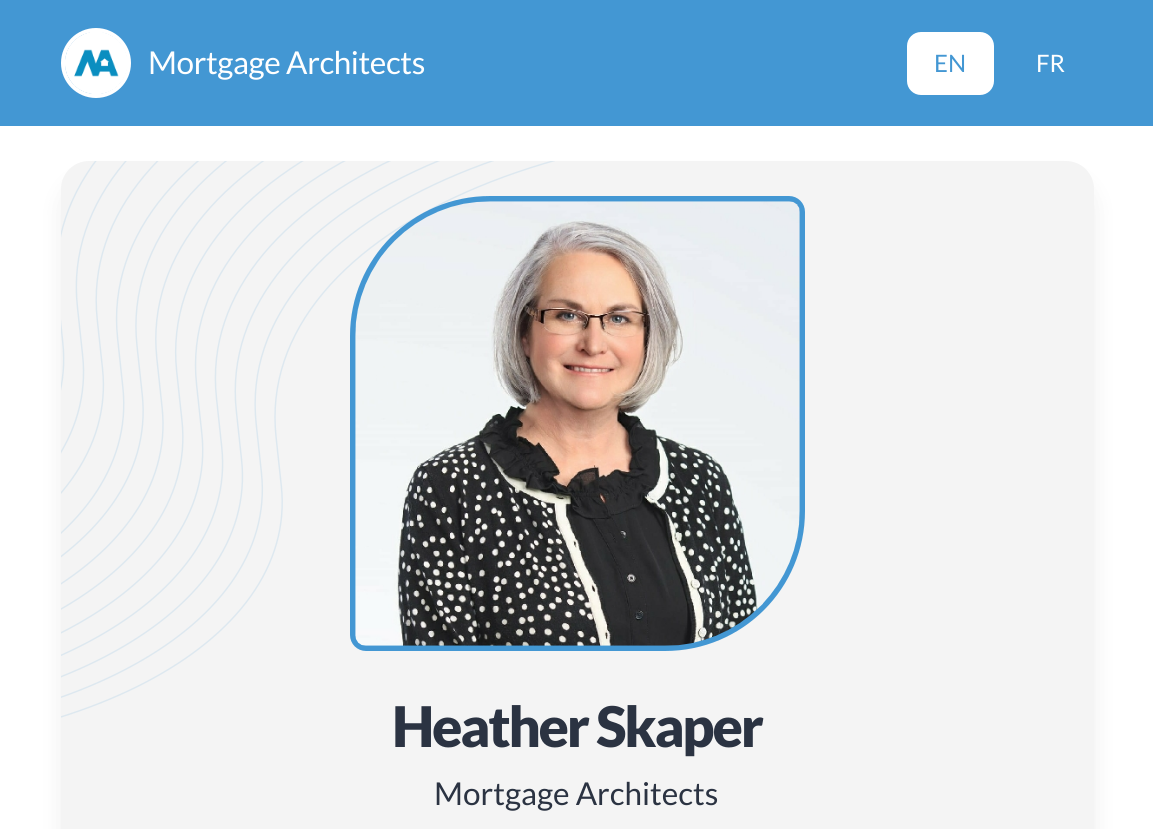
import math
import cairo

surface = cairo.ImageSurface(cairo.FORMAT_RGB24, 1153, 829)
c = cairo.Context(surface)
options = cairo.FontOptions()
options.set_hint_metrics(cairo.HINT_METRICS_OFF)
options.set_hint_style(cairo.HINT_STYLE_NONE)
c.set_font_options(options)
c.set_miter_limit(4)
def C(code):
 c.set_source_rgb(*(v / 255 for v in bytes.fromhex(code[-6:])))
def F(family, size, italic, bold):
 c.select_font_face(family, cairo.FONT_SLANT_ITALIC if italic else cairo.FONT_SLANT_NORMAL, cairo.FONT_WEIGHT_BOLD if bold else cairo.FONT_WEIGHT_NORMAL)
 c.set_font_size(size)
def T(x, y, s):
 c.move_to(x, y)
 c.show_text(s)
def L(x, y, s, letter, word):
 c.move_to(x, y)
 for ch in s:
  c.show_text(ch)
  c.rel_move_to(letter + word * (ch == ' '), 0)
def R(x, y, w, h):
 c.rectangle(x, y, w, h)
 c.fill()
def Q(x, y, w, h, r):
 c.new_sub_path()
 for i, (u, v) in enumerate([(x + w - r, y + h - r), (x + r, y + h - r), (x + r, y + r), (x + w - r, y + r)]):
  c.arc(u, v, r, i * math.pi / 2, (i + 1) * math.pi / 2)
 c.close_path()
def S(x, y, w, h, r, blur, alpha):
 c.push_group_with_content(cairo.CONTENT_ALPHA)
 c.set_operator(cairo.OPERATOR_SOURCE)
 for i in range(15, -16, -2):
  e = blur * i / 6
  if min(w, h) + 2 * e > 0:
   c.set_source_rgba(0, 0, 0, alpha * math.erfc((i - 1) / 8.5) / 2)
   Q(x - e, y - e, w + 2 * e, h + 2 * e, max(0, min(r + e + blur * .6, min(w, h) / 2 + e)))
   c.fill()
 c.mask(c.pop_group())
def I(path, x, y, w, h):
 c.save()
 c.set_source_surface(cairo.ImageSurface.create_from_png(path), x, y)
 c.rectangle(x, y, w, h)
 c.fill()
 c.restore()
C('4397d3')
c.paint()
c.arc(96,63,33,0,2 * math.pi)
C('ffffff')
c.set_line_width(4)
c.stroke()
I('1.png',65,32,62,62)
F('Lato',31.5,0,0)
L(148,74,'Mortgage Architects',-.4,0)
Q(907,32,87,63,14)
c.fill()
F('Lato',24,0,0)
C('4397d3')
T(934,72,'EN')
C('ffffff')
T(1036,72,'FR')
R(0,126,1153,703)
C('000000')
S(67,184,1022,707,23,13,.1)
C('f4f4f4')
Q(61,161,1033,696,28)
c.fill()
I('2.png',61,161,494,557)
C('4397d3')
c.new_path()
c.move_to(490,198.5)
c.line_to(789,198.5)
c.curve_to(796.5,198.5,802.5,204.5,802.5,212)
c.line_to(802.5,511)
c.curve_to(802.5,587,741,648.5,665,648.5)
c.line_to(366,648.5)
c.curve_to(358.5,648.5,352.5,642.5,352.5,635)
c.line_to(352.5,336)
c.curve_to(352.5,260,414,198.5,490,198.5)
c.close_path()
c.fill_preserve()
c.set_line_width(5)
c.stroke()
I('3.png',355,201,445,445)
F('Lato Black',56,0,0)
C('2b3342')
L(392,747,'Heather Skaper',-2.25,0)
F('Lato',31.5,0,0)
T(434,805,'Mortgage Architects')
surface.write_to_png('o.png')
